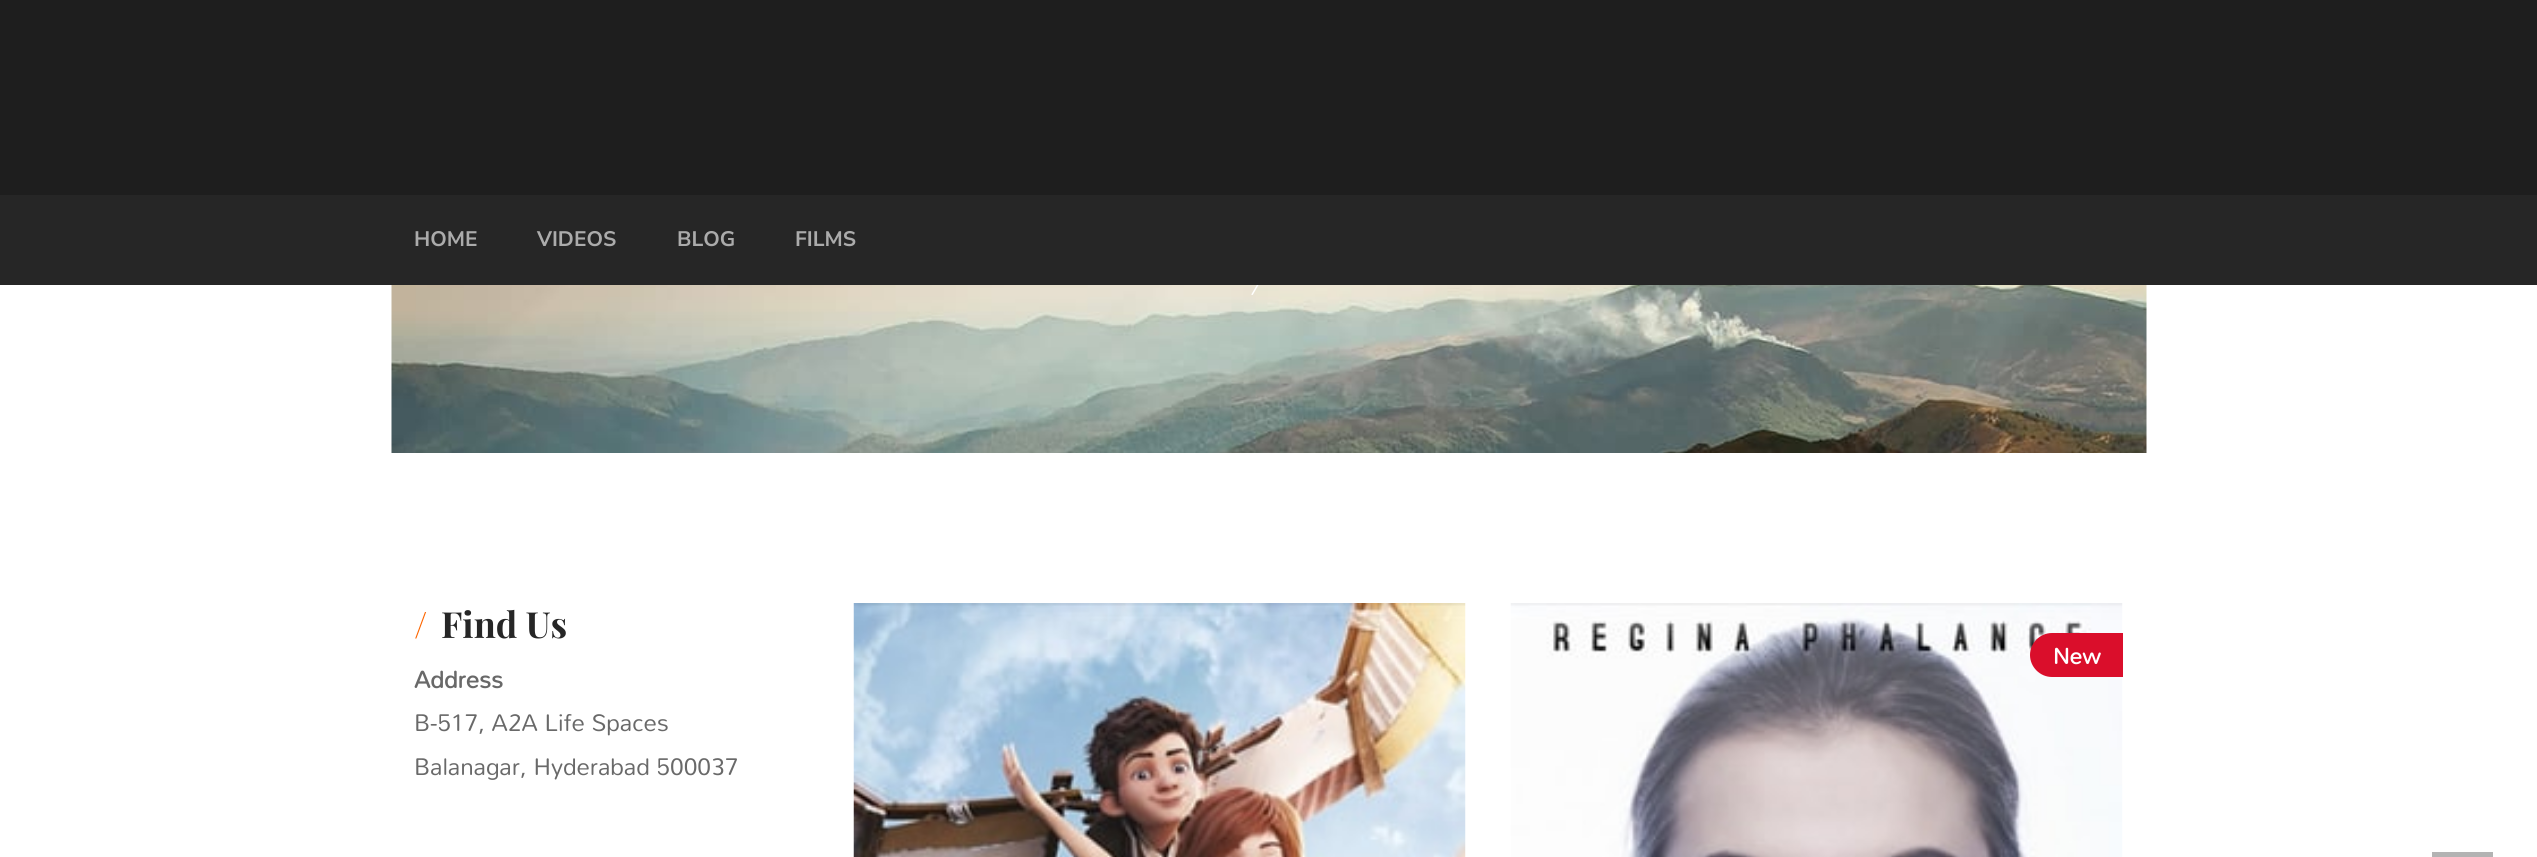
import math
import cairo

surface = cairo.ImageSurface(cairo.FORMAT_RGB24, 2537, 857)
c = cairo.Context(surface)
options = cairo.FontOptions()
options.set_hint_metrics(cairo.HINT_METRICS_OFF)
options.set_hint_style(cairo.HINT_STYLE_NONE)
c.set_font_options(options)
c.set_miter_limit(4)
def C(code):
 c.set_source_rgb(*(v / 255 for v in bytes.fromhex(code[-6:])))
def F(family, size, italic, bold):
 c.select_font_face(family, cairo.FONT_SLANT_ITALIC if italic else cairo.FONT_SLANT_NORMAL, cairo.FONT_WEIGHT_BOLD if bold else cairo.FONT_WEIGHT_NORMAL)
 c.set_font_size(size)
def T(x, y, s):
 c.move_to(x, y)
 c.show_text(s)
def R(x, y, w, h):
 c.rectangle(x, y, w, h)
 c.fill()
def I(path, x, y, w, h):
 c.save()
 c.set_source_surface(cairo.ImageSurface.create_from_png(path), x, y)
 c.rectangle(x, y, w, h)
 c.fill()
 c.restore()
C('ffffff')
c.paint()
C('1e1e1e')
R(0,0,2537,195)
I('1.png',391,285,1756,168)
F('Mandali',24,1,0)
C('ffffff')
T(1252,293,'/')
C('262626')
R(0,195,2537,90)
F('Nunito Sans ExtraLight',21,0,0)
C('ababab')
T(414,246,'HOME')
T(537,246,'VIDEOS')
T(677,246,'BLOG')
T(795,246,'FILMS')
F('Playfair Display',36,0,1)
C('fd6500')
T(414,638,'/')
C('262626')
T(441,638,'Find Us')
F('Mandali',24,0,1)
C('696969')
T(414,688,'Address')
F('Mandali',24,0,0)
T(414,731,'B-517, A2A Life Spaces')
T(414,775,'Balanagar, Hyderabad 500037')
I('2.png',853,603,613,254)
I('3.png',1510,603,613,254)
C('da0e2b')
c.new_path()
c.move_to(2052,633)
c.line_to(2123,633)
c.line_to(2123,677)
c.line_to(2052,677)
c.curve_to(2040,677,2030,667,2030,655)
c.curve_to(2030,643,2040,633,2052,633)
c.close_path()
c.fill()
F('Mandali',22.5,0,1)
C('ffffff')
T(2053,664,'New')
C('b3b3b3')
R(2432,852,61,5)
surface.write_to_png('o.png')
